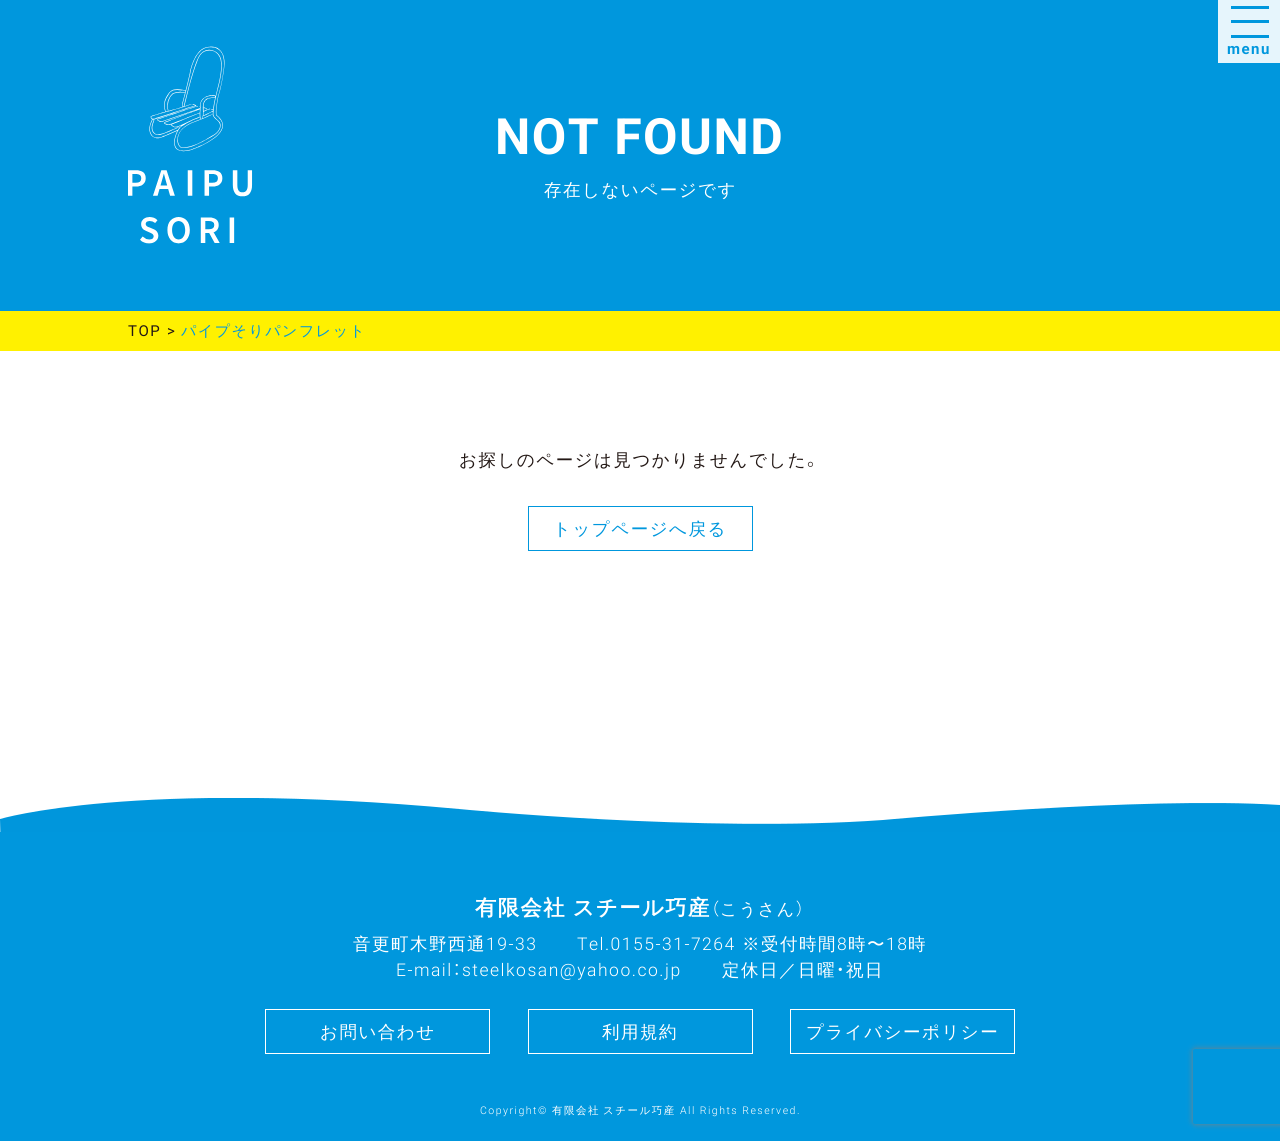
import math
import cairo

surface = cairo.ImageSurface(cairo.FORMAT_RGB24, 1280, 1141)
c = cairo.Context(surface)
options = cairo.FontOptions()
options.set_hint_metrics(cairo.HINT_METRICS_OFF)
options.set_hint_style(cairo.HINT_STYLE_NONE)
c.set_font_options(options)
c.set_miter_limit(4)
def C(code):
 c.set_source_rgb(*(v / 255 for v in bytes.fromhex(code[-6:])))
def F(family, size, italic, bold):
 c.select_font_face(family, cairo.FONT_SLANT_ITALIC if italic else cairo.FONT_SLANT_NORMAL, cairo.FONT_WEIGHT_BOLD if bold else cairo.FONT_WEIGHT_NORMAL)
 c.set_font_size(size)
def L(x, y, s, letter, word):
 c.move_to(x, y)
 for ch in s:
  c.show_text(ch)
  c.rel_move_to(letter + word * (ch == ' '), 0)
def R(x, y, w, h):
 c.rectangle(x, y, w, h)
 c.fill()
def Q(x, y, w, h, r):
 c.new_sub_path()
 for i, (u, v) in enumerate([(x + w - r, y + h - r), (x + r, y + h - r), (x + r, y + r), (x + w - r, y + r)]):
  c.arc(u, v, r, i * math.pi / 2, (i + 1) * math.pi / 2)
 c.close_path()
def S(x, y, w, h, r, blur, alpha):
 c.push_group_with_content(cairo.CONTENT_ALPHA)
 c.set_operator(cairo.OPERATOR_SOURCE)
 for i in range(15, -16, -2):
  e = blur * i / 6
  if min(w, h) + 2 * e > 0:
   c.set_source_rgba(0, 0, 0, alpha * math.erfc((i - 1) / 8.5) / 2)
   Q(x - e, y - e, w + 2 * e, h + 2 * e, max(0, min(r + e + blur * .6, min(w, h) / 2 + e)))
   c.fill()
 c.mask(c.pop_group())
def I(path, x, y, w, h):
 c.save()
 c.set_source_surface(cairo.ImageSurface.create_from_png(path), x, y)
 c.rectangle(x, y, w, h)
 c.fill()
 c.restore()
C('ffffff')
c.paint()
C('0097dd')
R(0,0,1280,311)
C('e6f5fc')
R(1218,0,62,63)
C('0097dd')
R(1231,6,38,3)
R(1231,20,38,3)
R(1231,35,38,3)
F('Roboto',15,0,1)
L(1227,54,'menu',1.5,0)
I('1.png',128,46,125,198)
F('Roboto',50,0,1)
C('ffffff')
L(495,154,'NOT FOUND',1.5,0)
F('WenQuanYi Zen Hei Medium',17.5,0,0)
L(544,196,'存在しないページです',1.5,0)
C('fff100')
R(0,311,1280,40)
F('Roboto',15,0,0)
C('231815')
L(128,336,'TOP',1.5,0)
L(167,336,'>',1.5,0)
F('WenQuanYi Zen Hei Medium',15,0,0)
C('0097dd')
L(181,336,'パイプそりパンフレット',1.5,0)
F('WenQuanYi Zen Hei Medium',17.5,0,0)
C('231815')
L(459,466,'お探しのページは見つかりませんでした',1.5,0)
F('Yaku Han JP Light',17.5,0,0)
L(807,466,'。',1.5,0)
c.rectangle(528.5,506.5,224,44)
C('0097dd')
c.set_line_width(1)
c.stroke()
F('WenQuanYi Zen Hei Medium',17.5,0,0)
L(553,535,'トップページへ戻る',1.5,0)
c.save()
c.rectangle(0,798,1280,98)
c.clip()
C('0096dc')
c.new_path()
c.move_to(0,819)
c.curve_to(0,819,133,779,459,809)
c.curve_to(459,809,704,833,883,820)
c.curve_to(883,820,1143,796,1280,805)
c.line_to(1280,896)
c.line_to(2,896)
c.close_path()
c.fill()
c.restore()
gradient = cairo.LinearGradient(640,1141,640,798)
gradient.add_color_stop_rgba(.9,0,0.592,0.867,1)
gradient.add_color_stop_rgba(.9,0,0.592,0.867,0)
gradient.add_color_stop_rgba(1,1,1,1,0)
c.set_source(gradient)
R(0,832,1280,309)
F('WenQuanYi Zen Hei',21.25,0,1)
C('ffffff')
L(475,915,'有限会社 スチール巧産',1.5,-1)
F('Yaku Han JP Light',17,0,0)
L(711,915,'（',1.5,0)
F('WenQuanYi Zen Hei Medium',17,0,0)
L(720,915,'こうさん',1.5,0)
F('Yaku Han JP Light',17,0,0)
L(796,915,'）',1.5,0)
F('WenQuanYi Zen Hei Medium',17.5,0,0)
L(353,950,'音更町木野西通',1.5,0)
F('Roboto Light',17.5,0,0)
L(486,950,'19-33',1.5,0)
L(577,950,'Tel.0155-31-7264',1.5,0)
F('WenQuanYi Zen Hei Medium',17.5,0,0)
L(742,950,'※受付時間',1.5,0)
F('Roboto Light',17.5,0,0)
L(837,950,'8',1.5,0)
F('WenQuanYi Zen Hei Medium',17.5,0,0)
L(848,950,'時〜',1.5,0)
F('Roboto Light',17.5,0,0)
L(886,950,'18',1.5,0)
F('WenQuanYi Zen Hei Medium',17.5,0,0)
L(908,950,'時',1.5,0)
F('Roboto Light',17.5,0,0)
L(396,976,'E-mail',1.5,0)
F('Yaku Han JP Light',17.5,0,0)
L(453,976,'：',1.5,0)
F('Roboto Light',17.5,0,0)
L(462,976,'steelkosan@yahoo.co.jp',1.5,0)
F('WenQuanYi Zen Hei Medium',17.5,0,0)
L(722,976,'定休日／日曜',1.5,0)
F('Yaku Han JP Light',17.5,0,0)
L(836,976,'・',1.5,0)
F('WenQuanYi Zen Hei Medium',17.5,0,0)
L(846,976,'祝日',1.5,0)
c.rectangle(265.5,1009.5,224,44)
c.stroke()
L(320,1038,'お問い合わせ',1.5,0)
c.rectangle(528.5,1009.5,224,44)
c.stroke()
L(602,1038,'利用規約',1.5,0)
c.rectangle(790.5,1009.5,224,44)
c.stroke()
L(806,1038,'プライバシーポリシー',1.5,0)
F('Roboto Light',10.5,0,0)
L(480,1114,'Copyright©',1.5,0)
F('WenQuanYi Zen Hei Medium',10.5,0,0)
L(552,1114,'有限会社',1.5,0)
L(603,1114,'スチール巧産',1.5,0)
F('Roboto Light',10.5,0,0)
L(680,1114,'All Rights Reserved.',1.5,0)
c.save()
c.set_fill_rule(cairo.FILL_RULE_EVEN_ODD)
c.new_path()
c.move_to(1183,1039)
c.line_to(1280,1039)
c.line_to(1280,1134)
c.line_to(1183,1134)
c.close_path()
c.move_to(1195.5,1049)
c.line_to(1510.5,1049)
c.curve_to(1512,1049,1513,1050,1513,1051.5)
c.line_to(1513,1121.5)
c.curve_to(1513,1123,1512,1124,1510.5,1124)
c.line_to(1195.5,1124)
c.curve_to(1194,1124,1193,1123,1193,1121.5)
c.line_to(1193,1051.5)
c.curve_to(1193,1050,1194,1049,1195.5,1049)
c.close_path()
c.clip()
C('808080')
S(1193,1049,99,75,2.5,3,1)
c.restore()
surface.write_to_png('o.png')
